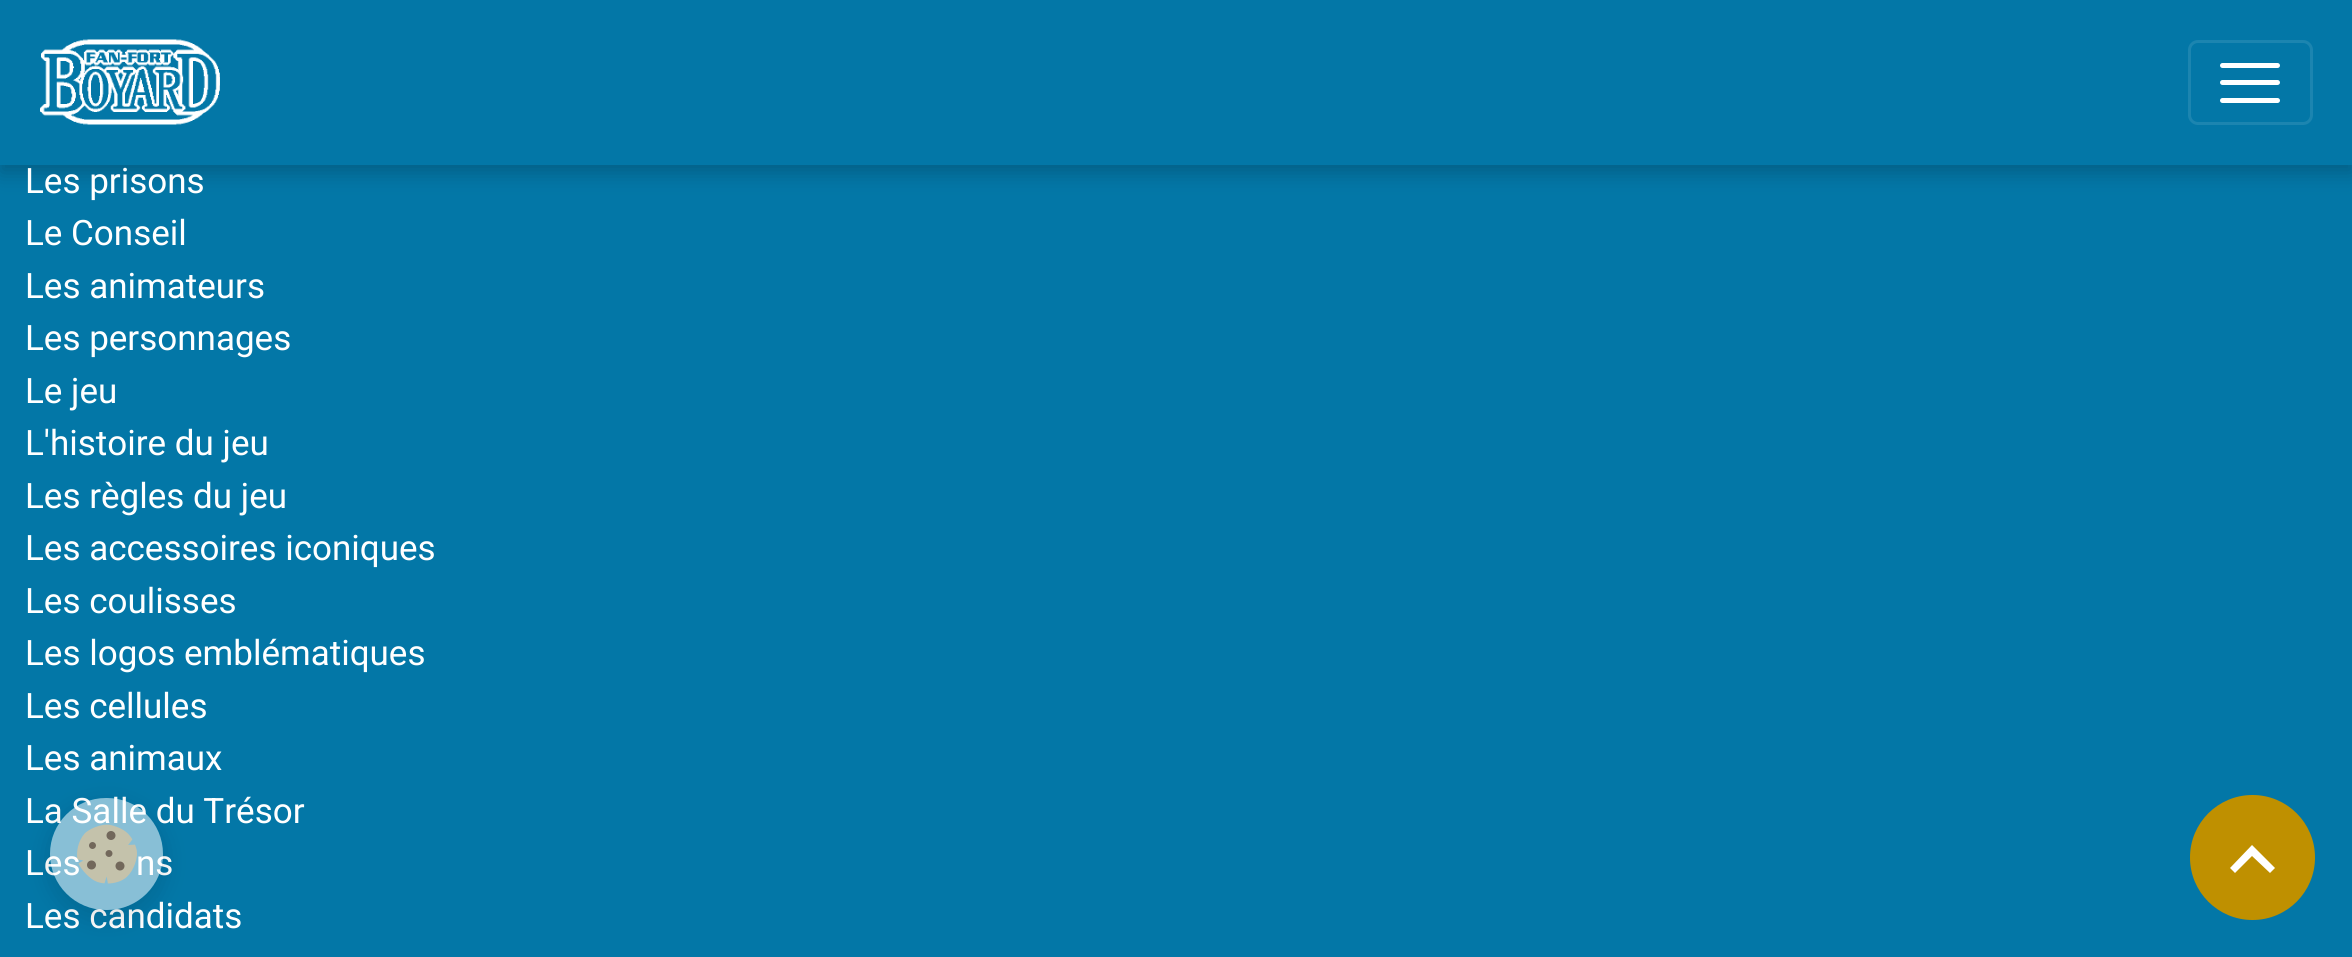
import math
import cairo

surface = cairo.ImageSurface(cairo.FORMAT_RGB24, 2352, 957)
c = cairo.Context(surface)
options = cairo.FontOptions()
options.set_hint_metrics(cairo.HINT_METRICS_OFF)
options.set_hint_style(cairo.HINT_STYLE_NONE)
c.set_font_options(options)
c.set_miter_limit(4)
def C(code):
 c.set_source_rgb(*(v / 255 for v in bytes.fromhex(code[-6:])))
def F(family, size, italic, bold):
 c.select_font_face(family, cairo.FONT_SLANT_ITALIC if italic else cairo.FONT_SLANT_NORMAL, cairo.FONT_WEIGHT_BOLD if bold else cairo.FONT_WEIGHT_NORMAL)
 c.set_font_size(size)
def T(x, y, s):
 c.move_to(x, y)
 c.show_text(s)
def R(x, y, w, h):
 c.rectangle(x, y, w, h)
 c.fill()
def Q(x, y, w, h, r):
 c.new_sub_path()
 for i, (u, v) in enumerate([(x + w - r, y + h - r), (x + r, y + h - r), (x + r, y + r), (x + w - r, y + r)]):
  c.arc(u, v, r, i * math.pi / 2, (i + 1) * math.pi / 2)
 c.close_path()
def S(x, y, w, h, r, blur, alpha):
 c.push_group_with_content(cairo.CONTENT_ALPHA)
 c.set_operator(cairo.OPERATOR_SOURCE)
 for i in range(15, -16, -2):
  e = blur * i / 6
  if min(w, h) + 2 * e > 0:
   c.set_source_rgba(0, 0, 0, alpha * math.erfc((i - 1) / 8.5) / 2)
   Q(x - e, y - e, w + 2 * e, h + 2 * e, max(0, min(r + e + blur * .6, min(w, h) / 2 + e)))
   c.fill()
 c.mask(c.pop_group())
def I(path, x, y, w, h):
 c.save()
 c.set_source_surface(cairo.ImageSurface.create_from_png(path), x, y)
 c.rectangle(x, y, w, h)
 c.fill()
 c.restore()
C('0377a7')
c.paint()
C('000000')
S(0,8,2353,165,0,10,.2)
C('0377a7')
R(0,0,2352,165)
I('1.png',40,39,180,86)
Q(2189.5,41.5,122,82,8.5)
C('1c85b0')
c.set_line_width(3)
c.stroke()
C('ffffff')
Q(2220,63,60,5,2.5)
c.fill()
Q(2220,80,60,5,2.5)
c.fill()
Q(2220,98,60,5,2.5)
c.fill()
F('Roboto',35,0,0)
T(25,193,'Les prisons')
T(25,245,'Le Conseil')
T(25,298,'Les animateurs')
T(25,350,'Les personnages')
T(25,403,'Le jeu')
T(25,455,'L\'histoire du jeu')
T(25,508,'Les règles du jeu')
T(25,560,'Les accessoires iconiques')
T(25,613,'Les coulisses')
T(25,665,'Les logos emblématiques')
T(25,718,'Les cellules')
T(25,770,'Les animaux')
T(25,823,'La Salle du Trésor')
T(25,875,'Les')
T(136,875,'ns')
T(25,928,'Les candidats')
c.save()
c.set_fill_rule(cairo.FILL_RULE_EVEN_ODD)
c.new_path()
c.move_to(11,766)
c.line_to(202,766)
c.line_to(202,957)
c.line_to(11,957)
c.close_path()
c.move_to(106,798)
c.line_to(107,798)
c.curve_to(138,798,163,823,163,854)
c.curve_to(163,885,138,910,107,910)
c.line_to(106,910)
c.curve_to(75,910,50,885,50,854)
c.curve_to(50,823,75,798,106,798)
c.close_path()
c.clip()
C('000000')
S(50,805,113,113,56.5,12.5,.13)
c.restore()
c.set_source_rgba(1,1,1,0.53)
Q(50,798,113,112,56)
c.fill()
I('2.png',77,824,60,60)
C('bf9000')
c.arc(2252.5,857.5,62.5,0,2 * math.pi)
c.fill()
C('ffffff')
c.new_path()
c.move_to(2252,845)
c.line_to(2275,868)
c.line_to(2270,873)
c.line_to(2252,856)
c.line_to(2235,873)
c.line_to(2230,868)
c.close_path()
c.fill()
surface.write_to_png('o.png')
